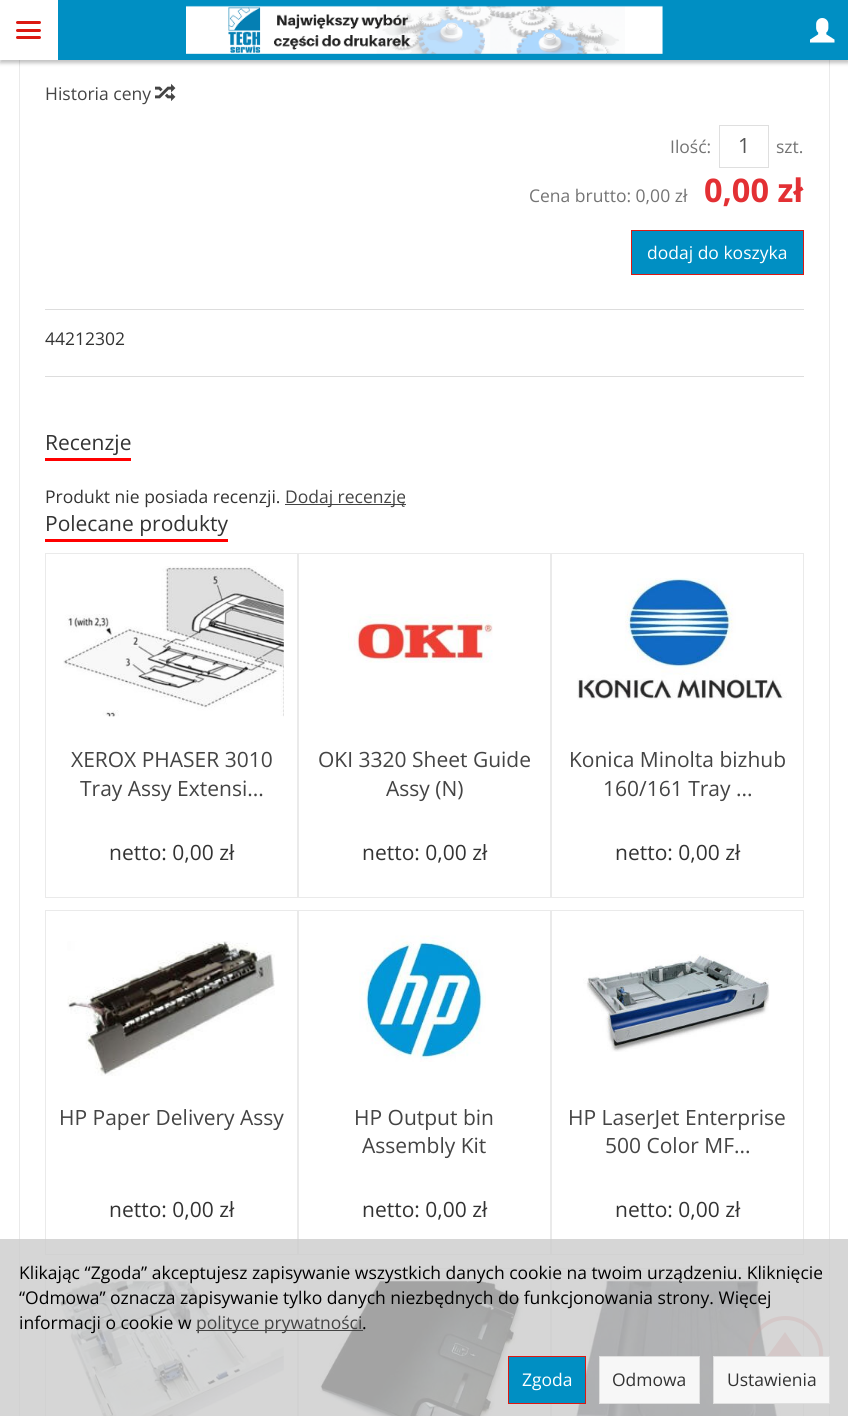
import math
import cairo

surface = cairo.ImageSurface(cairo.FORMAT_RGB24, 848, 1416)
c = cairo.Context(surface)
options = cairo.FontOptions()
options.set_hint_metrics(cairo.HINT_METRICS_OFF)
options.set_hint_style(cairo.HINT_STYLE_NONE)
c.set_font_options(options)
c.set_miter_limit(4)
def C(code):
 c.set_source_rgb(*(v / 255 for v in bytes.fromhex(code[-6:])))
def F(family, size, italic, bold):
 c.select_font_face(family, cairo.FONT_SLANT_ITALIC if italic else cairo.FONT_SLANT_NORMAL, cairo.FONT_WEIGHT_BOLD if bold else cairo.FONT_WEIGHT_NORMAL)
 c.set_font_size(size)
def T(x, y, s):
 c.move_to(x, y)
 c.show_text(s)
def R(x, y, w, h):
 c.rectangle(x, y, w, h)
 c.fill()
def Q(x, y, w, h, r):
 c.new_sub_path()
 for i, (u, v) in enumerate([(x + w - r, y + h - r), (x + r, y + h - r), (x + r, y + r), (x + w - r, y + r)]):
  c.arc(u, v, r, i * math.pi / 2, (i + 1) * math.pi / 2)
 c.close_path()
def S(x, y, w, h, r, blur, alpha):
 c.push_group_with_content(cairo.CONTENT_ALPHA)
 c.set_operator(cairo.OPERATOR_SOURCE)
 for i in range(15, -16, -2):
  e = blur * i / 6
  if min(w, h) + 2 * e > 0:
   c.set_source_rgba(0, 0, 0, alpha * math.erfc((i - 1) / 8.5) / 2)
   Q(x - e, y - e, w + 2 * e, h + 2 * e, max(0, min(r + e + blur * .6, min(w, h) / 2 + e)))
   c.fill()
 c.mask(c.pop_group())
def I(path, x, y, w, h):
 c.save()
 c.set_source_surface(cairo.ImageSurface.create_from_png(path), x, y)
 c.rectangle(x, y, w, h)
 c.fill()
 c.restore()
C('ffffff')
c.paint()
c.rectangle(19.5,-.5,810,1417)
C('eaeaea')
c.set_line_width(1)
c.stroke()
C('000000')
S(0,3,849,60,0,2,.25)
C('008fc3')
R(58,0,790,60)
C('ffffff')
R(0,0,58,60)
C('dc1912')
Q(16,21,25,3,1.5)
c.fill()
Q(16,29,25,3,1.5)
c.fill()
Q(16,36,25,3,1.5)
c.fill()
I('1.png',186,5,477,49)
I('2.png',810,18,25,25)
F('Open Sans',17.5,0,0)
C('444444')
T(45,100,'Historia ceny')
I('3.png',155,83,21,18)
C('747474')
T(670,153,'Ilość:')
c.rectangle(719.5,125.5,49,42)
C('dfdfdf')
c.stroke()
F('Open Sans',21,0,0)
C('555555')
T(738,153,'1')
F('Open Sans',17.5,0,0)
C('747474')
T(776,153,'szt.')
T(529,202,'Cena brutto: 0,00 zł')
F('Open Sans',32.5,0,1)
C('e33034')
T(704,202,'0,00 zł')
C('008fc3')
c.rectangle(631.5,230.5,172,44)
c.fill_preserve()
C('dc1912')
c.stroke()
F('Open Sans',17.5,0,0)
C('ffffff')
T(647,259,'dodaj do koszyka')
C('dddddd')
R(45,309,759,1)
C('333333')
T(45,345,'44212302')
C('dddddd')
R(45,376,759,1)
C('ff0000')
R(45,458,86,3)
F('Open Sans',21,0,0)
C('333333')
T(45,450,'Recenzje')
F('Open Sans',17.5,0,0)
T(45,503,'Produkt nie posiada recenzji.')
C('444444')
R(285,504,121,1)
T(285,503,'Dodaj recenzję')
C('ff0000')
R(45,539,183,3)
F('Open Sans',21,0,0)
C('333333')
T(45,531,'Polecane produkty')
c.rectangle(45.5,553.5,252,344)
C('eaeaea')
c.stroke()
I('4.png',63,566,221,151)
C('444444')
T(71,767,'XEROX PHASER 3010')
T(80,796,'Tray Assy Extensi...')
C('333333')
T(109,860,'netto: 0,00 zł')
c.rectangle(298.5,553.5,252,344)
C('eaeaea')
c.stroke()
I('5.png',348,614,145,49)
C('444444')
T(318,767,'OKI 3320 Sheet Guide')
T(386,796,'Assy (N)')
C('333333')
T(362,860,'netto: 0,00 zł')
c.rectangle(551.5,553.5,252,344)
C('eaeaea')
c.stroke()
I('6.png',577,578,210,122)
C('444444')
T(569,767,'Konica Minolta bizhub')
T(603,796,'160/161 Tray ...')
C('333333')
T(615,860,'netto: 0,00 zł')
c.rectangle(45.5,910.5,252,344)
C('eaeaea')
c.stroke()
I('7.png',67,941,208,135)
C('444444')
T(59,1125,'HP Paper Delivery Assy')
C('333333')
T(109,1217,'netto: 0,00 zł')
c.rectangle(298.5,910.5,252,344)
C('eaeaea')
c.stroke()
I('8.png',359,935,127,127)
C('444444')
T(354,1125,'HP Output bin')
T(362,1153,'Assembly Kit')
C('333333')
T(362,1217,'netto: 0,00 zł')
c.rectangle(551.5,910.5,252,344)
C('eaeaea')
c.stroke()
I('9.png',583,954,187,98)
C('444444')
T(568,1125,'HP LaserJet Enterprise')
T(605,1153,'500 Color MF...')
C('333333')
T(615,1217,'netto: 0,00 zł')
c.rectangle(45.5,1268.5,252,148)
C('eaeaea')
c.stroke()
I('10.png',58,1281,226,135)
c.rectangle(298.5,1268.5,252,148)
c.stroke()
I('11.png',318,1281,205,135)
c.rectangle(551.5,1268.5,252,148)
c.stroke()
I('12.png',574,1281,207,135)
c.save()
c.set_fill_rule(cairo.FILL_RULE_EVEN_ODD)
c.new_path()
c.move_to(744,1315)
c.line_to(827,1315)
c.line_to(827,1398)
c.line_to(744,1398)
c.close_path()
c.move_to(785.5,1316)
c.curve_to(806,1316,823,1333,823,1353.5)
c.curve_to(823,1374,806,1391,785.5,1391)
c.curve_to(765,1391,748,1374,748,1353.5)
c.curve_to(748,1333,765,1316,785.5,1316)
c.close_path()
c.clip()
C('000000')
S(748,1319,75,75,37.5,1,.12)
c.restore()
c.arc(785.5,1353.5,35.5,0,2 * math.pi)
c.set_source_rgba(0.863,0.098,0.071,0.3)
c.set_line_width(4)
c.stroke()
c.new_path()
c.move_to(766,1358)
c.line_to(785,1332)
c.line_to(803,1358)
c.line_to(791,1358)
c.line_to(791,1382)
c.line_to(778,1382)
c.line_to(778,1358)
c.close_path()
c.fill()
c.set_source_rgba(0.8,0.8,0.8,0.8)
R(0,1239,848,177)
F('Open Sans',17.5,0,0)
C('000000')
T(19,1279,'Klikając “Zgoda” akceptujesz zapisywanie wszystkich danych cookie na twoim urządzeniu. Kliknięcie')
T(19,1304,'“Odmowa” oznacza zapisywanie tylko danych niezbędnych do funkcjonowania strony. Więcej')
T(19,1329,'informacji o cookie w')
C('444444')
R(196,1330,167,1)
T(196,1329,'polityce prywatności')
C('000000')
T(362,1329,'.')
C('008fc3')
c.rectangle(508.5,1356.5,77,47)
c.fill_preserve()
C('dc1912')
c.set_line_width(1)
c.stroke()
C('ffffff')
T(522,1386,'Zgoda')
C('f7f7f7')
c.rectangle(599.5,1356.5,100,47)
c.fill_preserve()
C('dfdfdf')
c.stroke()
C('333333')
T(612,1386,'Odmowa')
C('f7f7f7')
c.rectangle(713.5,1356.5,116,47)
c.fill_preserve()
C('dfdfdf')
c.stroke()
C('333333')
T(727,1386,'Ustawienia')
surface.write_to_png('o.png')
